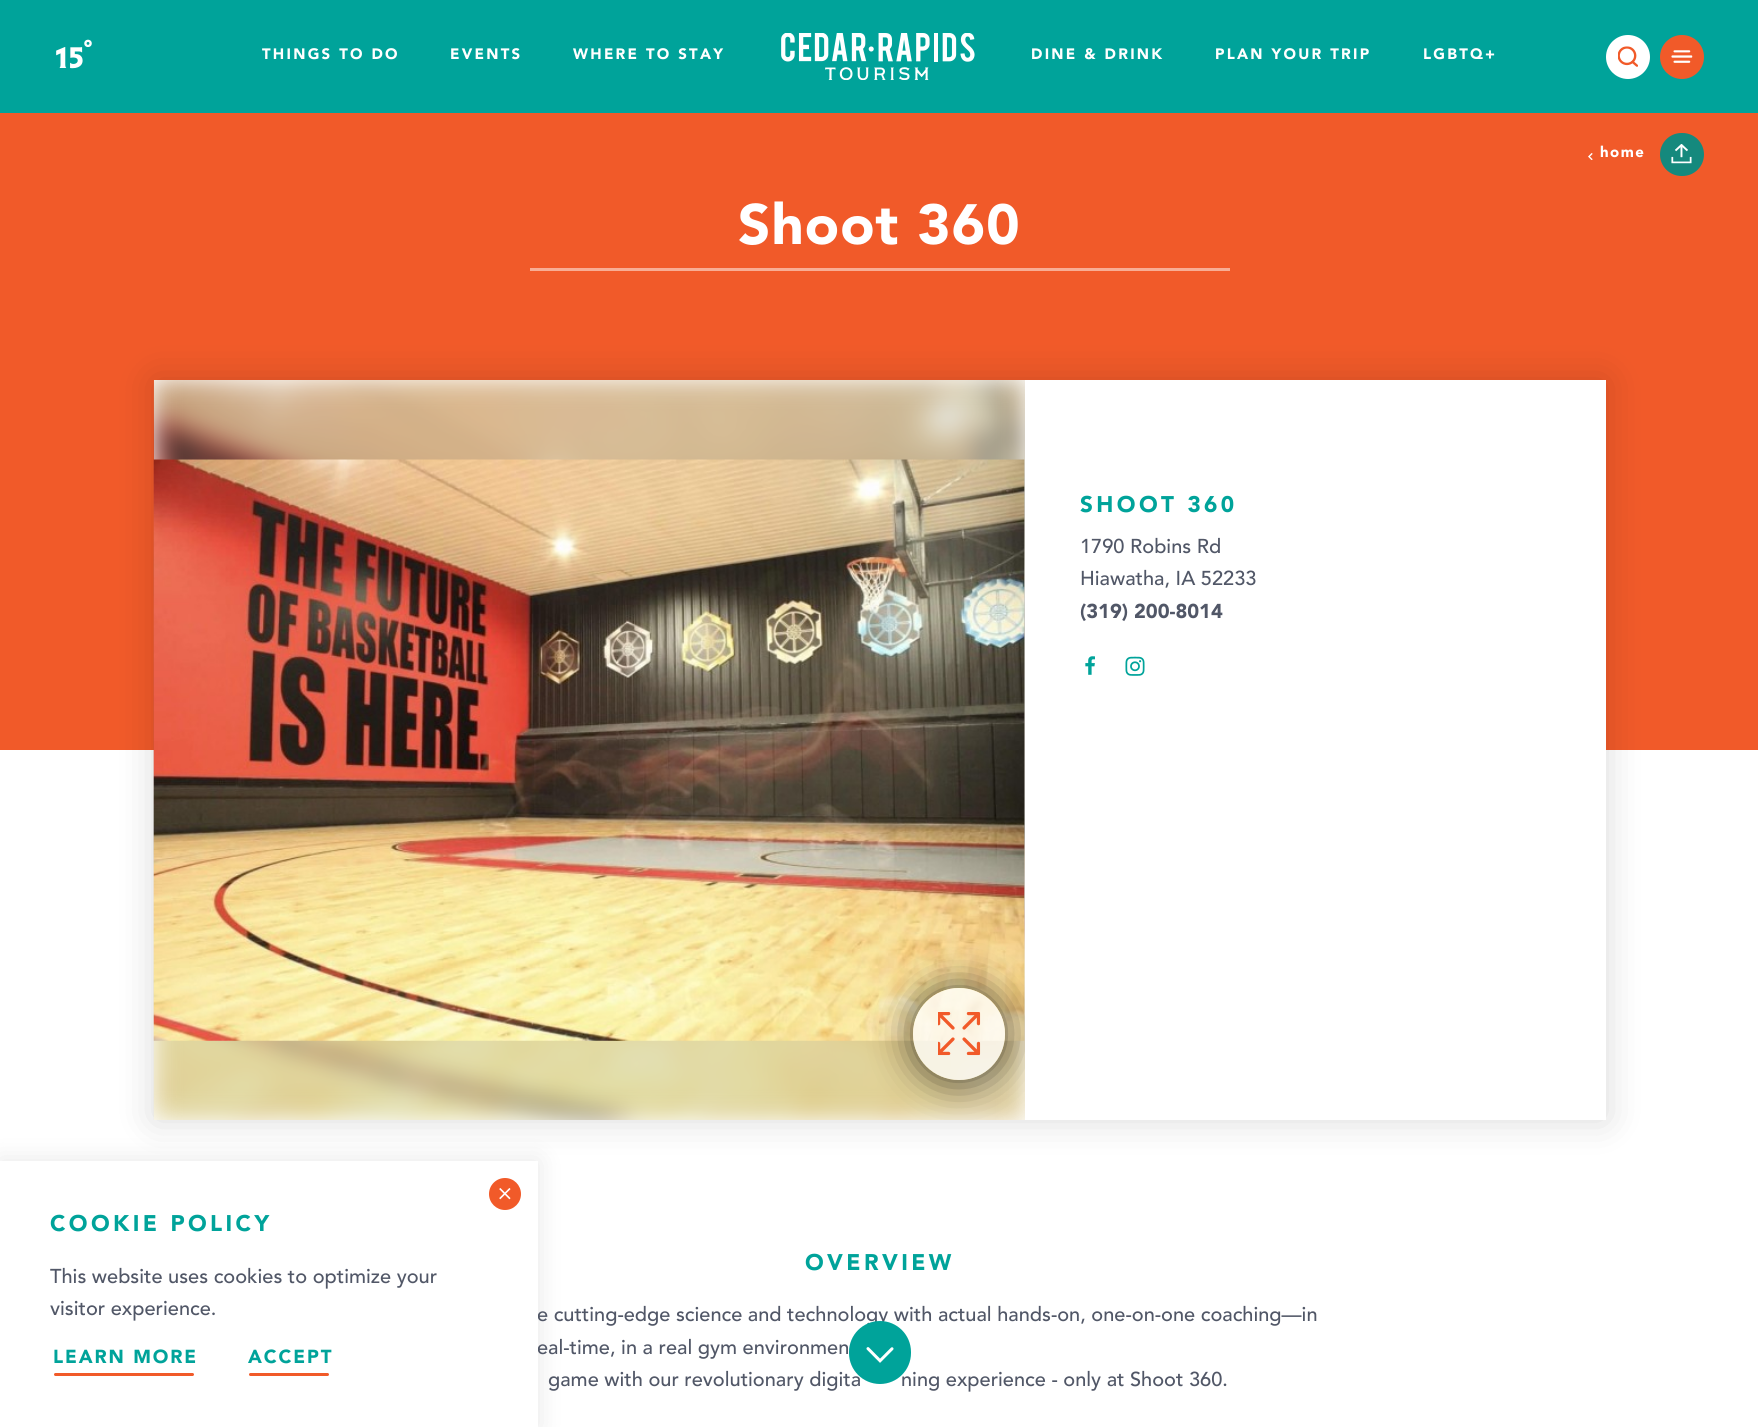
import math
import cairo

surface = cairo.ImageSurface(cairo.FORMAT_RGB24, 1758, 1427)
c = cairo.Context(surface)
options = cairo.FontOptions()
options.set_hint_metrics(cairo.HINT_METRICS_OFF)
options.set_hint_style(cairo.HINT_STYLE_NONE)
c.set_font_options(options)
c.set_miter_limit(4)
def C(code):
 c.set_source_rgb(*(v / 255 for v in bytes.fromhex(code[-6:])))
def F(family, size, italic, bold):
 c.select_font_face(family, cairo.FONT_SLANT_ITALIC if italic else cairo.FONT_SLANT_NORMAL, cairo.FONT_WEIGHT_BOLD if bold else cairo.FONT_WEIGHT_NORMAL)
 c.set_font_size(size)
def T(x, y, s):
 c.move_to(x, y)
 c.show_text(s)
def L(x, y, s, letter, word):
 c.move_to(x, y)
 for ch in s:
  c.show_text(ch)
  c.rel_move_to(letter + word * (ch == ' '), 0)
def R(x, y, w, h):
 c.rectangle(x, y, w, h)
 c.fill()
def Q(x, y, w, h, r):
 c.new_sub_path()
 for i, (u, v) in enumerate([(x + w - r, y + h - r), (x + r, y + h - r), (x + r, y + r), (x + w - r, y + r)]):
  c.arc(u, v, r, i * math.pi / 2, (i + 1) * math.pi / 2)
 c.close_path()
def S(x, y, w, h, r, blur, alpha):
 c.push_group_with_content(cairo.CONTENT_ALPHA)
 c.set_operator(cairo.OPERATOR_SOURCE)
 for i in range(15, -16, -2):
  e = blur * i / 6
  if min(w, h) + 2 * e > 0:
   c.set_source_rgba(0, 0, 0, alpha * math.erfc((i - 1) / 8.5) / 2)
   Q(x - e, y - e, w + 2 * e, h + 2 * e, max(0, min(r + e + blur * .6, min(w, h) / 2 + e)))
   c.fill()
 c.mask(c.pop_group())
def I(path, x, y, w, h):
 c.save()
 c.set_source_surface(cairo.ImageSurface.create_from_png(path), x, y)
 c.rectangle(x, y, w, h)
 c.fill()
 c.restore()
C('ffffff')
c.paint()
C('00a39a')
R(0,0,1758,113)
F('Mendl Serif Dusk',22.5,0,1)
C('ffffff')
T(84,56,'°')
F('Mendl Serif Dusk',30,0,1)
T(55,68,'15')
F('Avenir Black',15,0,0)
L(262,59,'THINGS TO DO',2.25,0)
L(450,59,'EVENTS',2.25,0)
L(573,59,'WHERE TO STAY',2.25,0)
I('1.png',781,33,194,47)
L(1031,59,'DINE & DRINK',2.25,0)
L(1215,59,'PLAN YOUR TRIP',2.25,0)
L(1423,59,'LGBTQ+',2.25,0)
c.new_path()
c.arc(1628,57,22,0,2 * math.pi)
c.fill()
I('2.png',1618,46,20,21)
C('f15a29')
c.arc(1682,57,22,0,2 * math.pi)
c.fill()
I('3.png',1671,50,22,13)
C('000000')
S(0,1161,538,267,0,12.5,.1)
C('f15a29')
R(0,113,1758,637)
C('000000')
S(154,380,1452,740,0,19,.15)
F('Avenir Medium',20,0,0)
C('515767')
T(537,1321,'e cutting-edge science and technology with actual hands-on, one-on-one coaching—in')
T(537,1354,'eal-time, in a real gym environmen')
C('ffffff')
R(0,1161,538,266)
C('f15a29')
c.new_path()
c.arc(505,1194,16,0,2 * math.pi)
c.fill()
I('4.png',499,1188,12,12)
F('Avenir Black',22.5,0,0)
C('00a39a')
L(50,1231,'COOKIE POLICY',3.4,0)
F('Avenir Medium',20,0,0)
C('515767')
T(50,1283,'This website uses cookies to optimize your')
T(50,1315,'visitor experience.')
F('Avenir Black',18.75,0,0)
C('00a39a')
L(53,1363,'LEARN MORE',1.9,0)
C('f15a29')
Q(54,1373,140,3,1.5)
c.fill()
C('00a39a')
L(248,1363,'ACCEPT',1.9,0)
C('f15a29')
Q(249,1373,80,3,1.5)
c.fill()
I('5.png',1588,153,5,7)
F('Avenir Black',15,0,0)
C('ffffff')
L(1600,157,'home',1.5,0)
C('15897d')
Q(1660,133,44,43,21.5)
c.fill()
I('6.png',1671,144,21,20)
F('Avenir Black',56.25,0,0)
C('ffffff')
L(738,244,'Shoot 360',1.1,0)
C('f8ad94')
R(530,268,700,3)
C('ffffff')
R(154,380,1452,740)
I('7.png',153,380,872,740)
I('8.png',153,459,872,582)
c.save()
c.rectangle(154,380,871,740)
c.clip()
c.set_fill_rule(cairo.FILL_RULE_EVEN_ODD)
c.new_path()
c.move_to(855,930)
c.line_to(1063,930)
c.line_to(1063,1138)
c.line_to(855,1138)
c.close_path()
c.move_to(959,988)
c.curve_to(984.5,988,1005,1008.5,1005,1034)
c.curve_to(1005,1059.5,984.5,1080,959,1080)
c.curve_to(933.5,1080,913,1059.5,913,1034)
c.curve_to(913,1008.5,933.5,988,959,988)
c.close_path()
c.clip()
C('000000')
S(913,988,92,92,46,19,.7)
c.restore()
c.set_source_rgba(1,1,1,0.75)
c.arc(959,1034,46,0,2 * math.pi)
c.fill()
I('9.png',938,1012,43,44)
F('Avenir Black',22.5,0,0)
C('00a39a')
L(1080,512,'SHOOT 360',3.4,0)
F('Avenir Medium',20,0,0)
C('515767')
T(1080,553,'1790 Robins Rd')
T(1080,585,'Hiawatha, IA 52233')
F('Avenir Black',20,0,0)
T(1080,618,'(319) 200-8014')
I('10.png',1085,656,10,19)
I('11.png',1125,656,20,20)
F('Avenir Black',22.5,0,0)
C('00a39a')
L(805,1270,'OVERVIEW',3.4,0)
F('Avenir Medium',20,0,0)
C('515767')
T(548,1386,'game with our revolutionary digita')
T(901,1386,'ning experience - only at Shoot 360.')
C('00a39a')
Q(849,1321,62,63,31)
c.fill()
I('12.png',866,1347,28,16)
surface.write_to_png('o.png')
